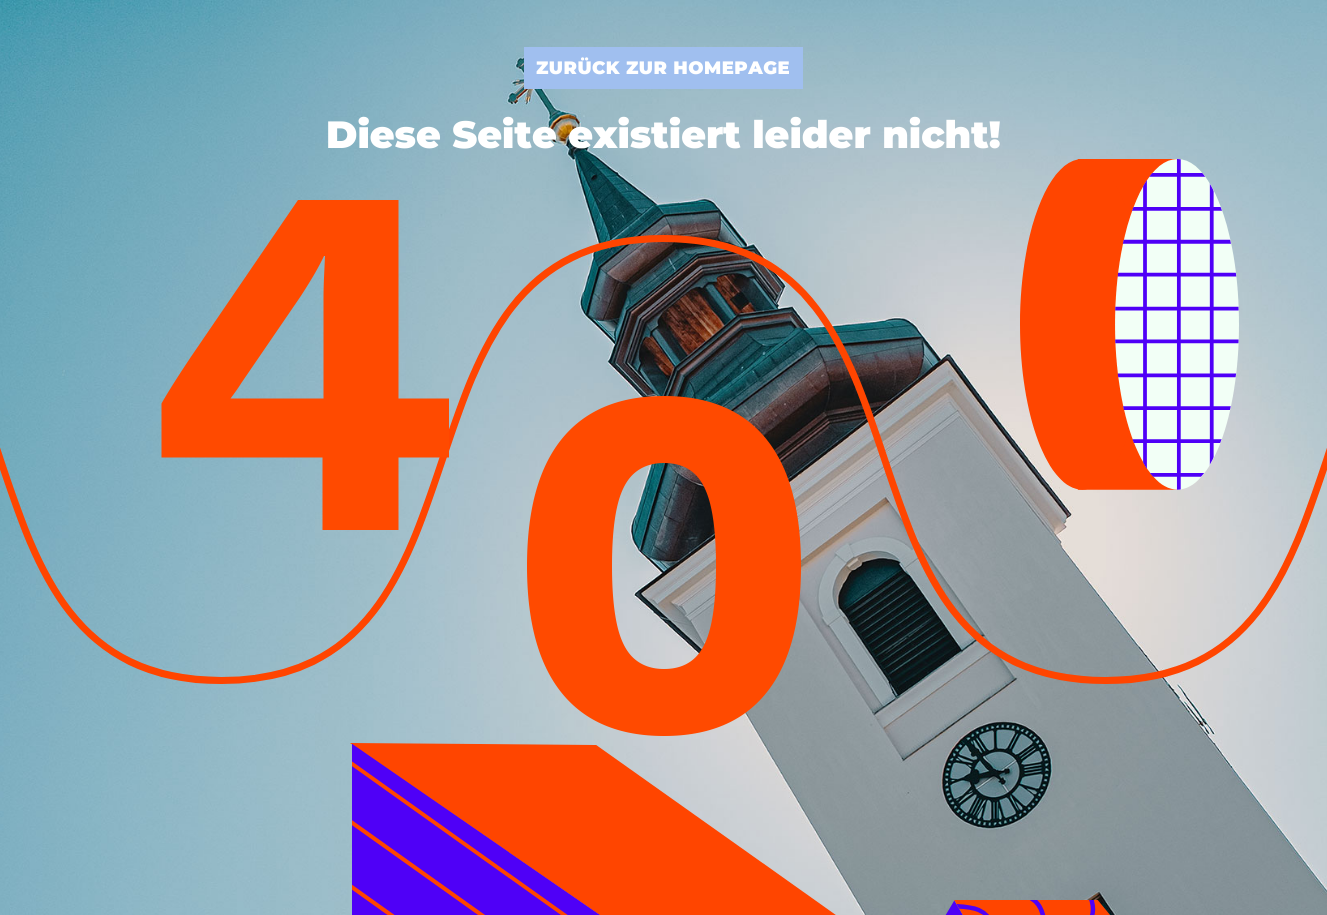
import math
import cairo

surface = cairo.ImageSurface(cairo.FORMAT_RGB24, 1327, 915)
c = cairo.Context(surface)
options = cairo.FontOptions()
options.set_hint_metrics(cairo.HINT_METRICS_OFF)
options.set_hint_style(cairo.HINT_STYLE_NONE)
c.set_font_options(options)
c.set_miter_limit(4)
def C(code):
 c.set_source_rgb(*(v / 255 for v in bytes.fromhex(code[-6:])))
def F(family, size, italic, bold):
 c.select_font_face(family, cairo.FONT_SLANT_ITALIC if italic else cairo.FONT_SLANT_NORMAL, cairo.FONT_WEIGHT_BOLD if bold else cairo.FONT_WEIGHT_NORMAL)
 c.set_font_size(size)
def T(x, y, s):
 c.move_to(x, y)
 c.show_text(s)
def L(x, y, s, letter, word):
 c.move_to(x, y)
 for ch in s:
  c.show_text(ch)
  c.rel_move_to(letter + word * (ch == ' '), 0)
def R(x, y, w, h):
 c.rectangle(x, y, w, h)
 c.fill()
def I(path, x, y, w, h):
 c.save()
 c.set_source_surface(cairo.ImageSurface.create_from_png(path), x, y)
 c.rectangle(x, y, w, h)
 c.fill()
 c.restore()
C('ffffff')
c.paint()
I('1.png',0,0,1327,915)
C('a0bfef')
R(524,47,279,42)
F('Montserrat Black',18,0,0)
C('ffffff')
L(536,74,'ZURÜCK ZUR HOMEPAGE',.5,0)
F('Montserrat Black',38,0,0)
T(326,148,'Diese Seite existiert leider nicht!')
I('5.png',0,235,1327,449)
I('2.png',1020,159,219,331)
I('3.png',350,743,486,172)
I('4.png',945,900,165,15)
F('Work Sans',500,0,1)
C('ff4a00')
T(140,530,'4')
T(503,731,'0')
surface.write_to_png('o.png')
